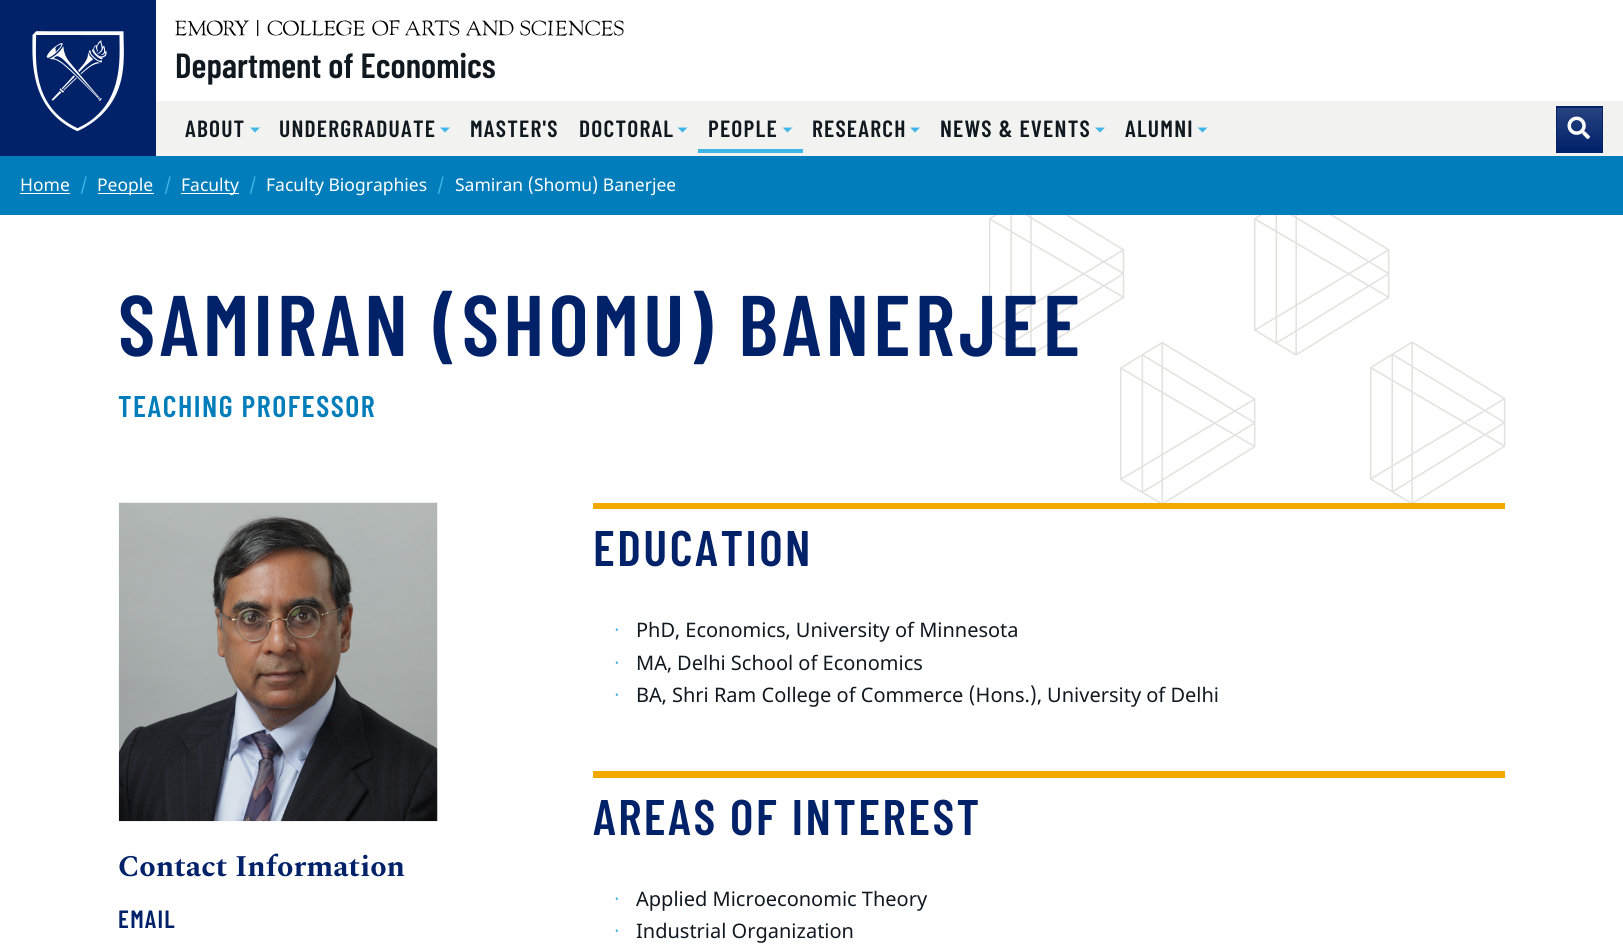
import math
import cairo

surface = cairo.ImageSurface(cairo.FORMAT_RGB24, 1623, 946)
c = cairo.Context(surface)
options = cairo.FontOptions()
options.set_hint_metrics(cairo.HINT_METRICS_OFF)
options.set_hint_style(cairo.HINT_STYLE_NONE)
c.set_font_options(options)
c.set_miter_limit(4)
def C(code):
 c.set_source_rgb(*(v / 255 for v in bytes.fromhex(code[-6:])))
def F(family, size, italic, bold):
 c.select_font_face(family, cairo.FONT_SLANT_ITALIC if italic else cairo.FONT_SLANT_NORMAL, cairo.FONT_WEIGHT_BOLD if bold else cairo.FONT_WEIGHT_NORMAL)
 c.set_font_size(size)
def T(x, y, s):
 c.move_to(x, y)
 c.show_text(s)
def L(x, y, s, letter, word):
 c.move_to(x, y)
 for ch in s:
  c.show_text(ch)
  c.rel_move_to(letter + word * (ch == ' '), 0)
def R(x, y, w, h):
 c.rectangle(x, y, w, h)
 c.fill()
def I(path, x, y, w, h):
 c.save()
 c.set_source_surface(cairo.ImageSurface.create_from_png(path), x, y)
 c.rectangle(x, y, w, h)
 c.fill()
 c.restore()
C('ffffff')
c.paint()
C('012169')
R(0,0,156,156)
I('1.png',32,31,92,100)
I('2.png',175,20,449,16)
F('Barlow Condensed SemiBold',35,0,0)
C('101820')
T(175,78,'Department of Economics')
C('f2f2f0')
R(156,101,1467,55)
F('Barlow Condensed SemiBold',23.5,0,0)
C('101820')
L(185,137,'ABOUT',1.2,0)
C('41b6e6')
c.new_path()
c.move_to(250,127.5)
c.line_to(260,127.5)
c.line_to(255,132.5)
c.close_path()
c.fill()
C('101820')
L(279,137,'UNDERGRADUATE',1.2,0)
C('41b6e6')
c.new_path()
c.move_to(440,127.5)
c.line_to(450,127.5)
c.line_to(445,132.5)
c.close_path()
c.fill()
C('101820')
L(470,137,'MASTER\'S',1.2,0)
L(579,137,'DOCTORAL',1.2,0)
C('41b6e6')
c.new_path()
c.move_to(677.5,127.5)
c.line_to(687.5,127.5)
c.line_to(682.5,132.5)
c.close_path()
c.fill()
R(698,149,105,4)
C('101820')
L(708,137,'PEOPLE',1.2,0)
C('41b6e6')
c.new_path()
c.move_to(782.5,127.5)
c.line_to(792.5,127.5)
c.line_to(787.5,132.5)
c.close_path()
c.fill()
C('101820')
L(812,137,'RESEARCH',1.2,0)
C('41b6e6')
c.new_path()
c.move_to(910,127.5)
c.line_to(920,127.5)
c.line_to(915,132.5)
c.close_path()
c.fill()
C('101820')
L(940,137,'NEWS & EVENTS',1.2,0)
C('41b6e6')
c.new_path()
c.move_to(1095,127.5)
c.line_to(1105,127.5)
c.line_to(1100,132.5)
c.close_path()
c.fill()
C('101820')
L(1125,137,'ALUMNI',1.2,0)
C('41b6e6')
c.new_path()
c.move_to(1197.5,127.5)
c.line_to(1207.5,127.5)
c.line_to(1202.5,132.5)
c.close_path()
c.fill()
C('012169')
R(1557,107,45,45)
gradient = cairo.LinearGradient(1579,108,1579,151)
gradient.add_color_stop_rgba(0,0.153,0.259,0.502,1)
gradient.add_color_stop_rgba(1,0.004,0.129,0.412,1)
c.set_source(gradient)
R(1557,108,45,40)
c.rectangle(1556.5,106.5,46,46)
C('012169')
c.set_line_width(1)
c.stroke()
I('3.png',1567,116,23,23)
C('007dba')
R(0,156,1623,59)
F('Noto Sans',17.5,0,0)
C('ffffff')
T(20,191,'Home')
R(20,193,50,1)
C('41b6e6')
T(80,191,'/')
C('ffffff')
R(98,193,56,1)
T(97,191,'People')
C('41b6e6')
T(164,191,'/')
C('ffffff')
R(181,193,58,1)
T(181,191,'Faculty')
C('41b6e6')
T(249,191,'/')
C('ffffff')
T(266,191,'Faculty Biographies')
C('41b6e6')
T(437,191,'/')
C('ffffff')
T(455,191,'Samiran (Shomu) Banerjee')
I('4.png',989,215,517,288)
F('Barlow Condensed SemiBold',85.9,0,0)
C('012169')
L(118,356,'SAMIRAN (SHOMU) BANERJEE',4.25,0)
F('Barlow Condensed SemiBold',30,0,0)
C('007dba')
L(118,417,'TEACHING PROFESSOR',1.5,0)
I('5.png',118,502,320,320)
F('Spectral',30,0,1)
C('012169')
T(118,876,'Contact Information')
F('Barlow Condensed SemiBold',25,0,0)
L(118,928,'EMAIL',1.25,0)
C('f2a900')
R(593,503,912,6)
F('Barlow Condensed SemiBold',50,0,0)
C('012169')
L(593,566,'EDUCATION',2.5,0)
F('Noto Sans Thin',20,0,0)
C('41b6e6')
T(613,637,'•')
F('Noto Sans',20,0,0)
C('101820')
T(636,637,'PhD, Economics, University of Minnesota')
F('Noto Sans Thin',20,0,0)
C('41b6e6')
T(613,670,'•')
F('Noto Sans',20,0,0)
C('101820')
T(636,670,'MA, Delhi School of Economics')
F('Noto Sans Thin',20,0,0)
C('41b6e6')
T(613,702,'•')
F('Noto Sans',20,0,0)
C('101820')
T(636,702,'BA, Shri Ram College of Commerce (Hons.), University of Delhi')
C('f2a900')
R(593,771,912,7)
F('Barlow Condensed SemiBold',50,0,0)
C('012169')
L(593,835,'AREAS OF INTEREST',2.5,0)
F('Noto Sans Thin',20,0,0)
C('41b6e6')
T(613,906,'•')
F('Noto Sans',20,0,0)
C('101820')
T(636,906,'Applied Microeconomic Theory')
F('Noto Sans Thin',20,0,0)
C('41b6e6')
T(613,938,'•')
F('Noto Sans',20,0,0)
C('101820')
T(636,938,'Industrial Organization')
surface.write_to_png('o.png')
